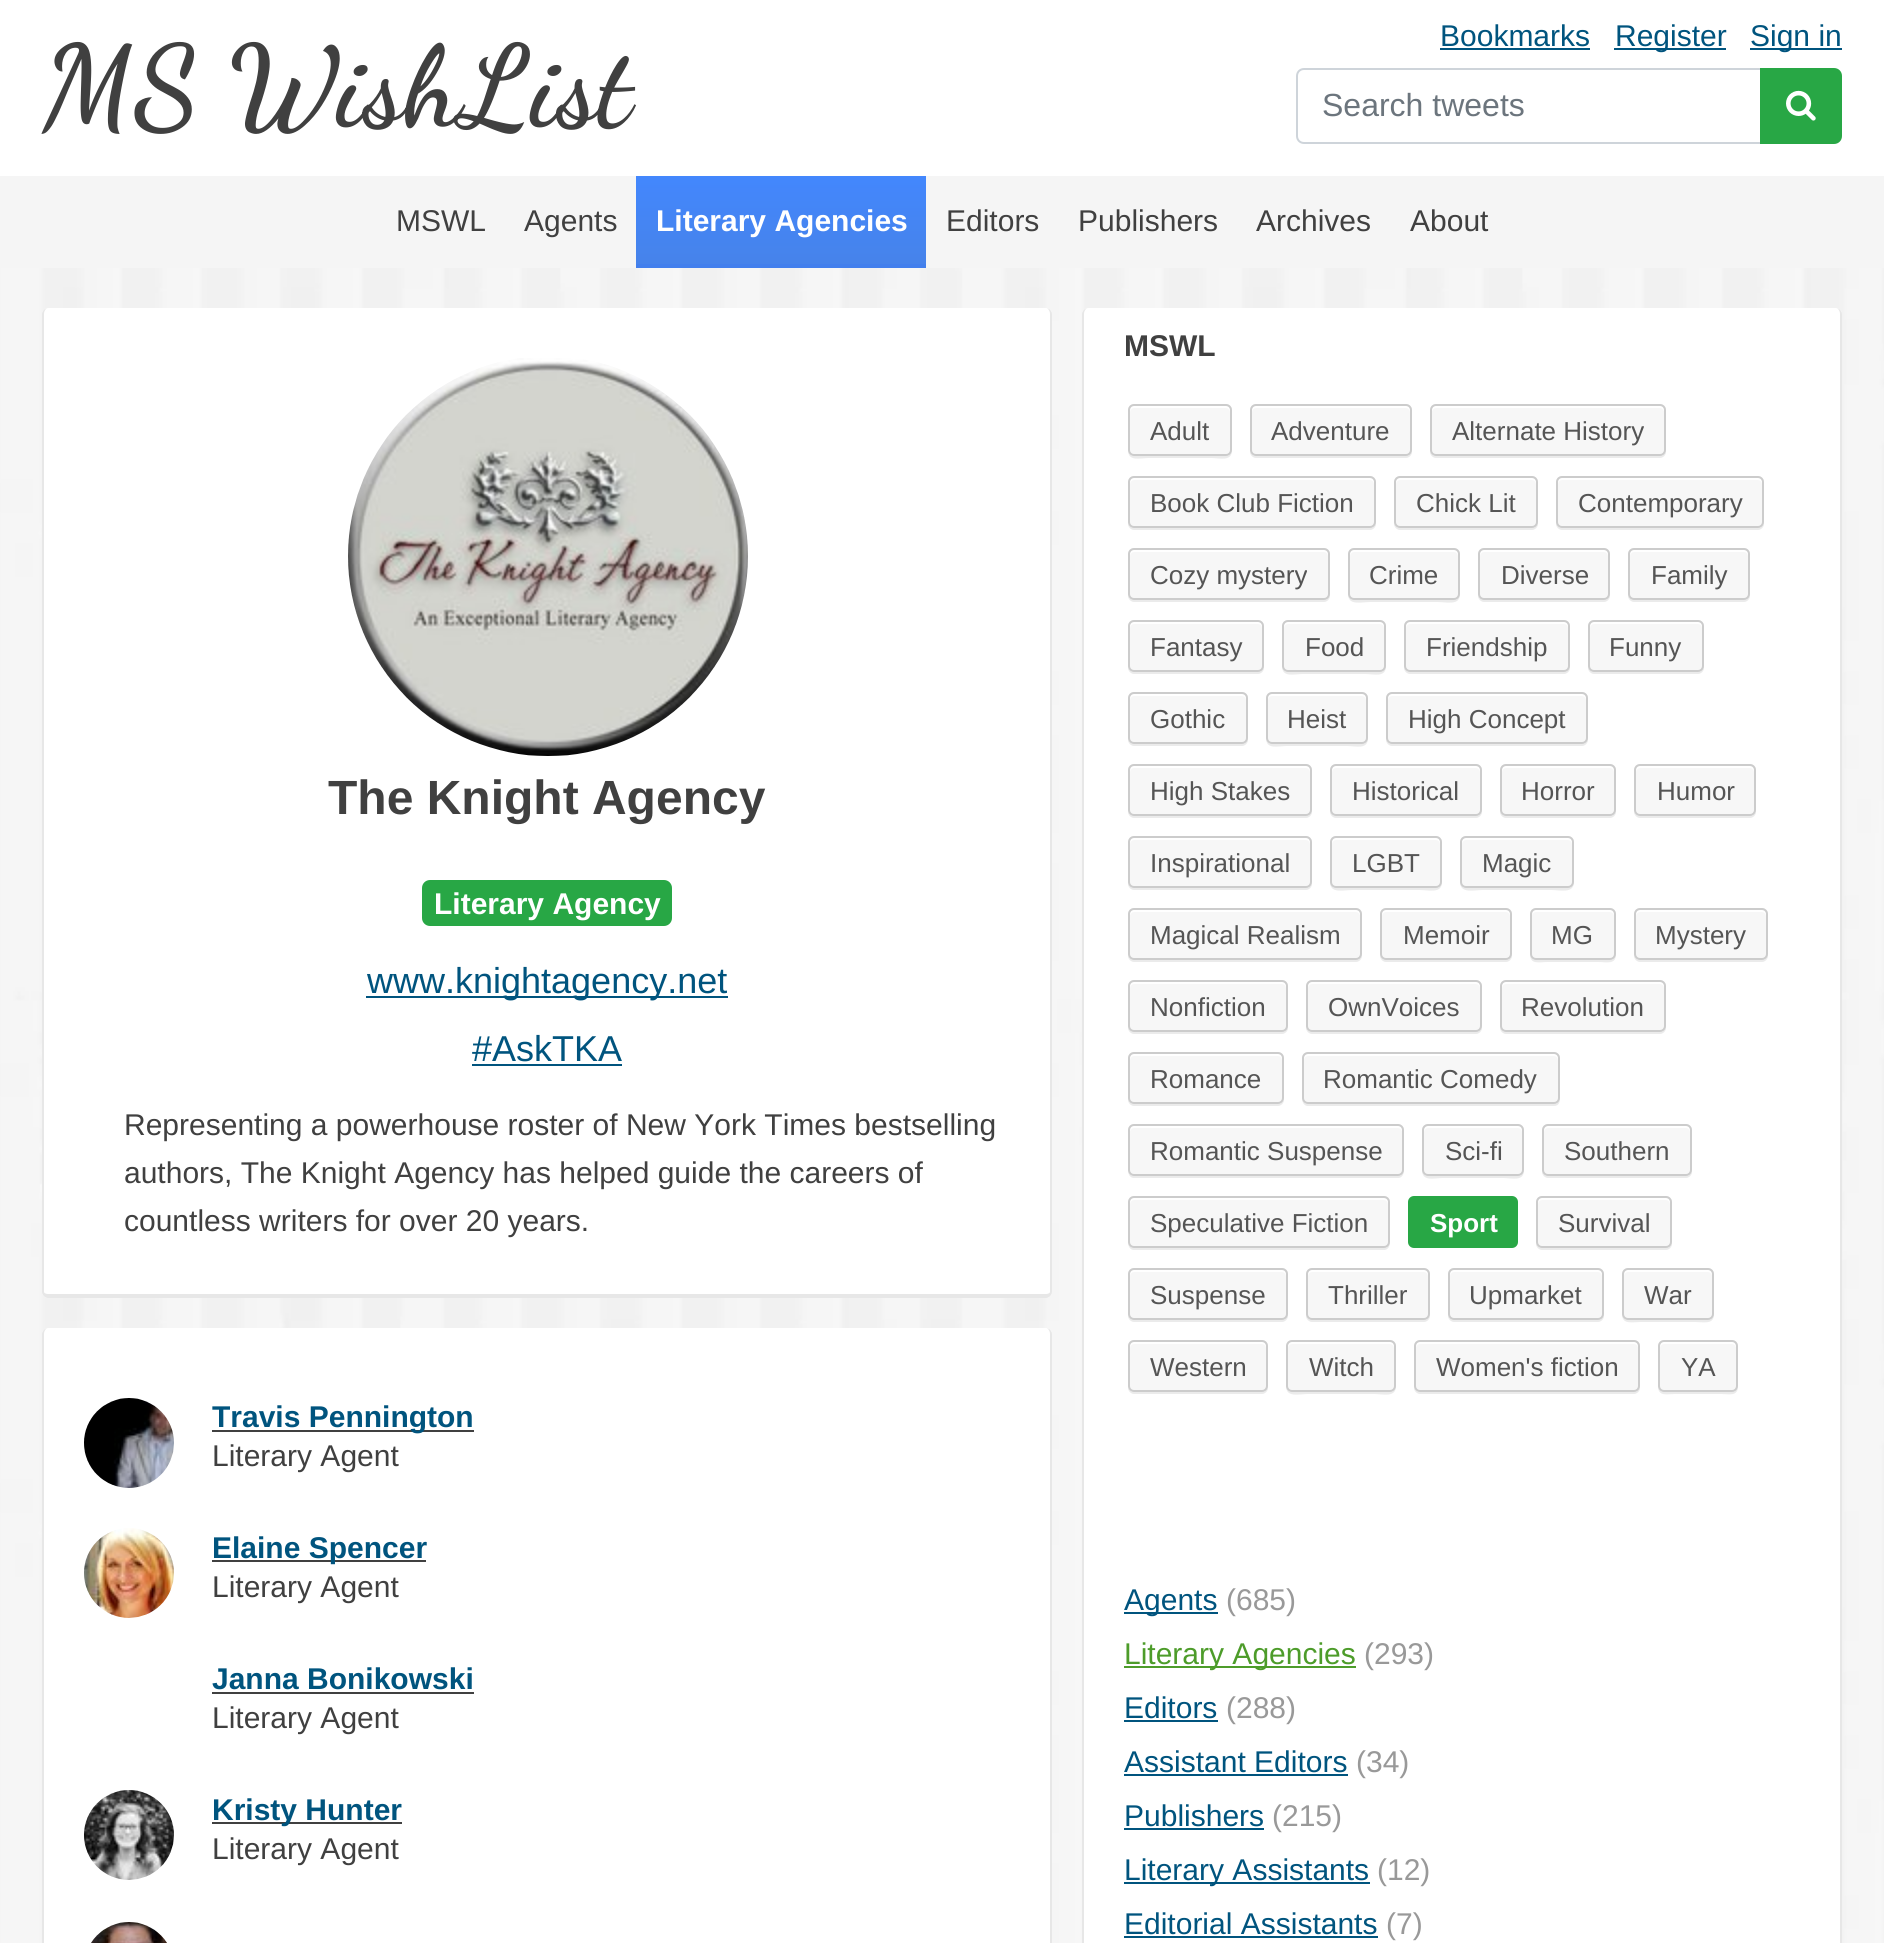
import math
import cairo

surface = cairo.ImageSurface(cairo.FORMAT_RGB24, 1884, 1943)
c = cairo.Context(surface)
options = cairo.FontOptions()
options.set_hint_metrics(cairo.HINT_METRICS_OFF)
options.set_hint_style(cairo.HINT_STYLE_NONE)
c.set_font_options(options)
c.set_miter_limit(4)
def C(code):
 c.set_source_rgb(*(v / 255 for v in bytes.fromhex(code[-6:])))
def F(family, size, italic, bold):
 c.select_font_face(family, cairo.FONT_SLANT_ITALIC if italic else cairo.FONT_SLANT_NORMAL, cairo.FONT_WEIGHT_BOLD if bold else cairo.FONT_WEIGHT_NORMAL)
 c.set_font_size(size)
def T(x, y, s):
 c.move_to(x, y)
 c.show_text(s)
def R(x, y, w, h):
 c.rectangle(x, y, w, h)
 c.fill()
def Q(x, y, w, h, r):
 c.new_sub_path()
 for i, (u, v) in enumerate([(x + w - r, y + h - r), (x + r, y + h - r), (x + r, y + r), (x + w - r, y + r)]):
  c.arc(u, v, r, i * math.pi / 2, (i + 1) * math.pi / 2)
 c.close_path()
def I(path, x, y, w, h):
 c.save()
 c.set_source_surface(cairo.ImageSurface.create_from_png(path), x, y)
 c.rectangle(x, y, w, h)
 c.fill()
 c.restore()
C('ffffff')
c.paint()
I('1.png',0,268,1884,1675)
F('Dancing Script',114,0,1)
C('404040')
T(42,124,'MS WishList')
F('Liberation Sans',30,0,0)
C('00547e')
T(1440,46,'Bookmarks')
R(1440,48,150,2)
R(1614,48,112,2)
T(1615,46,'Register')
R(1750,48,92,2)
T(1750,46,'Sign in')
c.new_path()
c.move_to(1304,69)
c.line_to(1761,69)
c.line_to(1761,143)
c.line_to(1304,143)
c.curve_to(1300,143,1297,140,1297,136)
c.line_to(1297,76)
c.curve_to(1297,72,1300,69,1304,69)
c.close_path()
C('ced4da')
c.stroke()
F('Liberation Sans',32,0,0)
C('6c757d')
T(1322,116,'Search tweets')
C('28a745')
c.new_path()
c.move_to(1761,69)
c.line_to(1834,69)
c.curve_to(1838,69,1841,72,1841,76)
c.line_to(1841,136)
c.curve_to(1841,140,1838,143,1834,143)
c.line_to(1761,143)
c.close_path()
c.fill_preserve()
c.stroke()
I('2.png',1786,90,30,31)
C('f5f5f5')
R(0,176,1884,92)
F('Liberation Sans',30,0,0)
C('404040')
T(396,231,'MSWL')
T(524,231,'Agents')
gradient = cairo.LinearGradient(781,176,781,264)
gradient.add_color_stop_rgba(0,0.263,0.529,0.992,1)
gradient.add_color_stop_rgba(1,0.275,0.514,0.918,1)
c.set_source(gradient)
R(636,176,290,88)
C('427fed')
R(636,264,290,4)
F('Liberation Sans',30,0,1)
C('ffffff')
T(656,231,'Literary Agencies')
F('Liberation Sans',30,0,0)
C('404040')
T(946,231,'Editors')
T(1078,231,'Publishers')
T(1256,231,'Archives')
T(1410,231,'About')
C('ffffff')
Q(42,308,1010,990,6)
c.fill()
C('e7e7e7')
c.set_fill_rule(cairo.FILL_RULE_EVEN_ODD)
c.new_path()
c.move_to(48,308)
c.line_to(1046,308)
c.curve_to(1049,308,1052,311,1052,314)
c.line_to(1052,1292)
c.curve_to(1052,1295,1049,1298,1046,1298)
c.line_to(48,1298)
c.curve_to(45,1298,42,1295,42,1292)
c.line_to(42,314)
c.curve_to(42,311,45,308,48,308)
c.close_path()
c.move_to(48,308)
c.line_to(1046,308)
c.curve_to(1048,308,1050,311,1050,314)
c.line_to(1050,1292)
c.curve_to(1050,1293,1048,1294,1046,1294)
c.line_to(48,1294)
c.curve_to(46,1294,44,1293,44,1292)
c.line_to(44,314)
c.curve_to(44,311,46,308,48,308)
c.close_path()
c.fill()
I('3.png',348,358,400,398)
F('Liberation Sans',48,0,1)
C('404040')
T(328,814,'The Knight Agency')
C('28a745')
Q(422,880,250,46,8)
c.fill()
F('Liberation Sans',30,0,1)
C('ffffff')
T(434,914,'Literary Agency')
C('00547e')
R(366,996,362,2)
F('Liberation Sans',36,0,0)
T(367,993,'www.knightagency.net')
T(472,1061,'#AskTKA')
R(472,1064,150,2)
F('Liberation Sans',30,0,0)
C('404040')
T(124,1135,'Representing a powerhouse roster of New York Times bestselling')
T(124,1183,'authors, The Knight Agency has helped guide the careers of')
T(124,1231,'countless writers for over 20 years.')
C('ffffff')
Q(42,1328,1010,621,6)
c.fill()
C('e7e7e7')
c.new_path()
c.move_to(48,1328)
c.line_to(1046,1328)
c.curve_to(1049,1328,1052,1331,1052,1334)
c.line_to(1052,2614)
c.curve_to(1052,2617,1049,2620,1046,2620)
c.line_to(48,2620)
c.curve_to(45,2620,42,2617,42,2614)
c.line_to(42,1334)
c.curve_to(42,1331,45,1328,48,1328)
c.close_path()
c.move_to(48,1328)
c.line_to(1046,1328)
c.curve_to(1048,1328,1050,1331,1050,1334)
c.line_to(1050,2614)
c.curve_to(1050,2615,1048,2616,1046,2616)
c.line_to(48,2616)
c.curve_to(46,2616,44,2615,44,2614)
c.line_to(44,1334)
c.curve_to(44,1331,46,1328,48,1328)
c.close_path()
c.fill()
I('4.png',84,1398,90,90)
C('404040')
R(212,1430,262,2)
F('Liberation Sans',30,0,1)
C('00547e')
T(212,1427,'Travis Pennington')
F('Liberation Sans',30,0,0)
C('404040')
T(212,1466,'Literary Agent')
I('5.png',84,1528,90,90)
R(212,1560,214,2)
F('Liberation Sans',30,0,1)
C('00547e')
T(212,1558,'Elaine Spencer')
F('Liberation Sans',30,0,0)
C('404040')
T(212,1597,'Literary Agent')
F('Liberation Sans',30,0,1)
C('00547e')
T(212,1689,'Janna Bonikowski')
C('404040')
R(212,1692,262,2)
F('Liberation Sans',30,0,0)
T(212,1728,'Literary Agent')
I('6.png',84,1790,90,90)
R(212,1822,190,2)
F('Liberation Sans',30,0,1)
C('00547e')
T(212,1820,'Kristy Hunter')
F('Liberation Sans',30,0,0)
C('404040')
T(212,1859,'Literary Agent')
I('7.png',91,1922,76,21)
C('ffffff')
Q(1082,308,760,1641,6)
c.fill()
C('e7e7e7')
c.new_path()
c.move_to(1088,308)
c.line_to(1836,308)
c.curve_to(1839,308,1842,311,1842,314)
c.line_to(1842,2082)
c.curve_to(1842,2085,1839,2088,1836,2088)
c.line_to(1088,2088)
c.curve_to(1085,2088,1082,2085,1082,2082)
c.line_to(1082,314)
c.curve_to(1082,311,1085,308,1088,308)
c.close_path()
c.move_to(1088,308)
c.line_to(1836,308)
c.curve_to(1838,308,1840,311,1840,314)
c.line_to(1840,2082)
c.curve_to(1840,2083,1838,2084,1836,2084)
c.line_to(1088,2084)
c.curve_to(1086,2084,1084,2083,1084,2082)
c.line_to(1084,314)
c.curve_to(1084,311,1086,308,1088,308)
c.close_path()
c.fill()
F('Liberation Sans',30,0,1)
C('404040')
T(1124,356,'MSWL')
C('ebebeb')
c.set_fill_rule(cairo.FILL_RULE_WINDING)
c.new_path()
c.move_to(1128,450)
c.curve_to(1128,462,1140,458,1149,458)
c.line_to(1211,458)
c.curve_to(1220,458,1232,462,1232,450)
c.curve_to(1232,453,1229,456,1226,456)
c.line_to(1134,456)
c.curve_to(1131,456,1128,453,1128,450)
c.close_path()
c.fill()
C('f7f7f7')
Q(1128,404,104,52,6)
c.fill()
C('ffffff')
c.new_path()
c.move_to(1134,408)
c.line_to(1226,408)
c.curve_to(1228,408,1230,410,1230,412)
c.line_to(1230,410)
c.curve_to(1230,408,1228,406,1226,406)
c.line_to(1134,406)
c.curve_to(1132,406,1130,408,1130,410)
c.line_to(1130,412)
c.curve_to(1130,410,1132,408,1134,408)
c.close_path()
c.fill()
Q(1129,405,102,50,5)
C('cccccc')
c.stroke()
F('Liberation Sans',26,0,0)
C('555555')
T(1150,440,'Adult')
C('ebebeb')
c.new_path()
c.move_to(1250,450)
c.line_to(1250,452)
c.curve_to(1250,455,1253,458,1256,458)
c.line_to(1406,458)
c.curve_to(1409,458,1412,455,1412,452)
c.line_to(1412,450)
c.curve_to(1412,453,1409,456,1406,456)
c.line_to(1256,456)
c.curve_to(1253,456,1250,453,1250,450)
c.close_path()
c.fill()
C('f7f7f7')
Q(1250,404,162,52,6)
c.fill()
C('ffffff')
c.new_path()
c.move_to(1256,408)
c.line_to(1406,408)
c.curve_to(1408,408,1410,410,1410,412)
c.line_to(1410,410)
c.curve_to(1410,408,1408,406,1406,406)
c.line_to(1256,406)
c.curve_to(1254,406,1252,408,1252,410)
c.line_to(1252,412)
c.curve_to(1252,410,1254,408,1256,408)
c.close_path()
c.fill()
Q(1251,405,160,50,5)
C('cccccc')
c.stroke()
C('555555')
T(1271,440,'Adventure')
C('ebebeb')
c.new_path()
c.move_to(1430,450)
c.line_to(1430,452)
c.curve_to(1430,455,1433,458,1436,458)
c.line_to(1660,458)
c.curve_to(1663,458,1666,455,1666,452)
c.line_to(1666,450)
c.curve_to(1666,453,1663,456,1660,456)
c.line_to(1436,456)
c.curve_to(1433,456,1430,453,1430,450)
c.close_path()
c.fill()
C('f7f7f7')
Q(1430,404,236,52,6)
c.fill()
C('ffffff')
c.new_path()
c.move_to(1436,408)
c.line_to(1660,408)
c.curve_to(1662,408,1664,410,1664,412)
c.curve_to(1664,409,1664,406,1660,406)
c.line_to(1436,406)
c.curve_to(1432,406,1432,409,1432,412)
c.curve_to(1432,410,1434,408,1436,408)
c.close_path()
c.fill()
Q(1431,405,234,50,5)
C('cccccc')
c.stroke()
C('555555')
T(1452,440,'Alternate History')
C('ebebeb')
c.new_path()
c.move_to(1128,522)
c.line_to(1128,524)
c.curve_to(1128,527,1131,530,1134,530)
c.line_to(1370,530)
c.curve_to(1373,530,1376,527,1376,524)
c.line_to(1376,522)
c.curve_to(1376,525,1373,528,1370,528)
c.line_to(1134,528)
c.curve_to(1131,528,1128,525,1128,522)
c.close_path()
c.fill()
C('f7f7f7')
Q(1128,476,248,52,6)
c.fill()
C('ffffff')
c.new_path()
c.move_to(1134,480)
c.line_to(1370,480)
c.curve_to(1372,480,1374,482,1374,484)
c.line_to(1374,482)
c.curve_to(1374,480,1372,478,1370,478)
c.line_to(1134,478)
c.curve_to(1132,478,1130,480,1130,482)
c.line_to(1130,484)
c.curve_to(1130,482,1132,480,1134,480)
c.close_path()
c.fill()
Q(1129,477,246,50,5)
C('cccccc')
c.stroke()
C('555555')
T(1150,512,'Book Club Fiction')
C('ebebeb')
c.new_path()
c.move_to(1394,522)
c.line_to(1394,524)
c.curve_to(1394,527,1397,530,1400,530)
c.line_to(1532,530)
c.curve_to(1535,530,1538,527,1538,524)
c.line_to(1538,522)
c.curve_to(1538,525,1535,528,1532,528)
c.line_to(1400,528)
c.curve_to(1397,528,1394,525,1394,522)
c.close_path()
c.fill()
C('f7f7f7')
Q(1394,476,144,52,6)
c.fill()
C('ffffff')
c.new_path()
c.move_to(1400,480)
c.line_to(1532,480)
c.curve_to(1534,480,1536,482,1536,484)
c.line_to(1536,482)
c.curve_to(1536,480,1534,478,1532,478)
c.line_to(1400,478)
c.curve_to(1398,478,1396,480,1396,482)
c.line_to(1396,484)
c.curve_to(1396,482,1398,480,1400,480)
c.close_path()
c.fill()
Q(1395,477,142,50,5)
C('cccccc')
c.stroke()
C('555555')
T(1416,512,'Chick Lit')
C('ebebeb')
c.new_path()
c.move_to(1556,522)
c.line_to(1556,524)
c.curve_to(1556,527,1559,530,1562,530)
c.line_to(1758,530)
c.curve_to(1761,530,1764,527,1764,524)
c.line_to(1764,522)
c.curve_to(1764,525,1761,528,1758,528)
c.line_to(1562,528)
c.curve_to(1559,528,1556,525,1556,522)
c.close_path()
c.fill()
C('f7f7f7')
Q(1556,476,208,52,6)
c.fill()
C('ffffff')
c.new_path()
c.move_to(1562,480)
c.line_to(1758,480)
c.curve_to(1760,480,1762,482,1762,484)
c.line_to(1762,482)
c.curve_to(1762,480,1760,478,1758,478)
c.line_to(1562,478)
c.curve_to(1560,478,1558,480,1558,482)
c.line_to(1558,484)
c.curve_to(1558,482,1560,480,1562,480)
c.close_path()
c.fill()
Q(1557,477,206,50,5)
C('cccccc')
c.stroke()
C('555555')
T(1578,512,'Contemporary')
C('ebebeb')
c.new_path()
c.move_to(1128,594)
c.line_to(1128,596)
c.curve_to(1128,599,1131,602,1134,602)
c.line_to(1324,602)
c.curve_to(1327,602,1330,599,1330,596)
c.line_to(1330,594)
c.curve_to(1330,597,1327,600,1324,600)
c.line_to(1134,600)
c.curve_to(1131,600,1128,597,1128,594)
c.close_path()
c.fill()
C('f7f7f7')
Q(1128,548,202,52,6)
c.fill()
C('ffffff')
c.new_path()
c.move_to(1134,552)
c.line_to(1324,552)
c.curve_to(1326,552,1328,554,1328,556)
c.line_to(1328,554)
c.curve_to(1328,552,1326,550,1324,550)
c.line_to(1134,550)
c.curve_to(1132,550,1130,552,1130,554)
c.line_to(1130,556)
c.curve_to(1130,554,1132,552,1134,552)
c.close_path()
c.fill()
Q(1129,549,200,50,5)
C('cccccc')
c.stroke()
C('555555')
T(1150,584,'Cozy mystery')
C('ebebeb')
c.new_path()
c.move_to(1348,594)
c.curve_to(1348,606,1361,602,1371,602)
c.line_to(1437,602)
c.curve_to(1447,602,1460,606,1460,594)
c.curve_to(1460,597,1457,600,1454,600)
c.line_to(1354,600)
c.curve_to(1351,600,1348,597,1348,594)
c.close_path()
c.fill()
C('f7f7f7')
Q(1348,548,112,52,6)
c.fill()
C('ffffff')
c.new_path()
c.move_to(1354,552)
c.line_to(1454,552)
c.curve_to(1456,552,1458,554,1458,556)
c.line_to(1458,554)
c.curve_to(1458,552,1456,550,1454,550)
c.line_to(1354,550)
c.curve_to(1352,550,1350,552,1350,554)
c.line_to(1350,556)
c.curve_to(1350,554,1352,552,1354,552)
c.close_path()
c.fill()
Q(1349,549,110,50,5)
C('cccccc')
c.stroke()
C('555555')
T(1369,584,'Crime')
C('ebebeb')
c.new_path()
c.move_to(1478,594)
c.line_to(1478,596)
c.curve_to(1478,599,1481,602,1484,602)
c.line_to(1604,602)
c.curve_to(1607,602,1610,599,1610,596)
c.line_to(1610,594)
c.curve_to(1610,597,1607,600,1604,600)
c.line_to(1484,600)
c.curve_to(1481,600,1478,597,1478,594)
c.close_path()
c.fill()
C('f7f7f7')
Q(1478,548,132,52,6)
c.fill()
C('ffffff')
c.new_path()
c.move_to(1484,552)
c.line_to(1604,552)
c.curve_to(1606,552,1608,554,1608,556)
c.line_to(1608,554)
c.curve_to(1608,552,1606,550,1604,550)
c.line_to(1484,550)
c.curve_to(1482,550,1480,552,1480,554)
c.line_to(1480,556)
c.curve_to(1480,554,1482,552,1484,552)
c.close_path()
c.fill()
Q(1479,549,130,50,5)
C('cccccc')
c.stroke()
C('555555')
T(1501,584,'Diverse')
C('ebebeb')
c.new_path()
c.move_to(1628,594)
c.line_to(1628,596)
c.curve_to(1628,599,1631,602,1634,602)
c.line_to(1744,602)
c.curve_to(1747,602,1750,599,1750,596)
c.line_to(1750,594)
c.curve_to(1750,597,1747,600,1744,600)
c.line_to(1634,600)
c.curve_to(1631,600,1628,597,1628,594)
c.close_path()
c.fill()
C('f7f7f7')
Q(1628,548,122,52,6)
c.fill()
C('ffffff')
c.new_path()
c.move_to(1634,552)
c.line_to(1744,552)
c.curve_to(1746,552,1748,554,1748,556)
c.line_to(1748,554)
c.curve_to(1748,552,1746,550,1744,550)
c.line_to(1634,550)
c.curve_to(1632,550,1630,552,1630,554)
c.line_to(1630,556)
c.curve_to(1630,554,1632,552,1634,552)
c.close_path()
c.fill()
Q(1629,549,120,50,5)
C('cccccc')
c.stroke()
C('555555')
T(1651,584,'Family')
C('ebebeb')
c.new_path()
c.move_to(1128,666)
c.line_to(1128,668)
c.curve_to(1128,671,1131,674,1134,674)
c.line_to(1258,674)
c.curve_to(1261,674,1264,671,1264,668)
c.line_to(1264,666)
c.curve_to(1264,669,1261,672,1258,672)
c.line_to(1134,672)
c.curve_to(1131,672,1128,669,1128,666)
c.close_path()
c.fill()
C('f7f7f7')
Q(1128,620,136,52,6)
c.fill()
C('ffffff')
c.new_path()
c.move_to(1134,624)
c.line_to(1258,624)
c.curve_to(1260,624,1262,626,1262,628)
c.line_to(1262,626)
c.curve_to(1262,624,1260,622,1258,622)
c.line_to(1134,622)
c.curve_to(1132,622,1130,624,1130,626)
c.line_to(1130,628)
c.curve_to(1130,626,1132,624,1134,624)
c.close_path()
c.fill()
Q(1129,621,134,50,5)
C('cccccc')
c.stroke()
C('555555')
T(1150,656,'Fantasy')
C('ebebeb')
c.new_path()
c.move_to(1282,666)
c.curve_to(1282,678,1294,674,1303,674)
c.line_to(1365,674)
c.curve_to(1374,674,1386,678,1386,666)
c.curve_to(1386,669,1383,672,1380,672)
c.line_to(1288,672)
c.curve_to(1285,672,1282,669,1282,666)
c.close_path()
c.fill()
C('f7f7f7')
Q(1282,620,104,52,6)
c.fill()
C('ffffff')
c.new_path()
c.move_to(1288,624)
c.line_to(1380,624)
c.curve_to(1382,624,1384,626,1384,628)
c.line_to(1384,626)
c.curve_to(1384,624,1382,622,1380,622)
c.line_to(1288,622)
c.curve_to(1286,622,1284,624,1284,626)
c.line_to(1284,628)
c.curve_to(1284,626,1286,624,1288,624)
c.close_path()
c.fill()
Q(1283,621,102,50,5)
C('cccccc')
c.stroke()
C('555555')
T(1305,656,'Food')
C('ebebeb')
c.new_path()
c.move_to(1404,666)
c.line_to(1404,668)
c.curve_to(1404,671,1407,674,1410,674)
c.line_to(1564,674)
c.curve_to(1567,674,1570,671,1570,668)
c.line_to(1570,666)
c.curve_to(1570,669,1567,672,1564,672)
c.line_to(1410,672)
c.curve_to(1407,672,1404,669,1404,666)
c.close_path()
c.fill()
C('f7f7f7')
Q(1404,620,166,52,6)
c.fill()
C('ffffff')
c.new_path()
c.move_to(1410,624)
c.line_to(1564,624)
c.curve_to(1566,624,1568,626,1568,628)
c.line_to(1568,626)
c.curve_to(1568,624,1566,622,1564,622)
c.line_to(1410,622)
c.curve_to(1408,622,1406,624,1406,626)
c.line_to(1406,628)
c.curve_to(1406,626,1408,624,1410,624)
c.close_path()
c.fill()
Q(1405,621,164,50,5)
C('cccccc')
c.stroke()
C('555555')
T(1426,656,'Friendship')
C('ebebeb')
c.new_path()
c.move_to(1588,666)
c.line_to(1588,668)
c.curve_to(1588,671,1591,674,1594,674)
c.line_to(1698,674)
c.curve_to(1701,674,1704,671,1704,668)
c.line_to(1704,666)
c.curve_to(1704,669,1701,672,1698,672)
c.line_to(1594,672)
c.curve_to(1591,672,1588,669,1588,666)
c.close_path()
c.fill()
C('f7f7f7')
Q(1588,620,116,52,6)
c.fill()
C('ffffff')
c.new_path()
c.move_to(1594,624)
c.line_to(1698,624)
c.curve_to(1700,624,1702,626,1702,628)
c.line_to(1702,626)
c.curve_to(1702,624,1700,622,1698,622)
c.line_to(1594,622)
c.curve_to(1592,622,1590,624,1590,626)
c.line_to(1590,628)
c.curve_to(1590,626,1592,624,1594,624)
c.close_path()
c.fill()
Q(1589,621,114,50,5)
C('cccccc')
c.stroke()
C('555555')
T(1609,656,'Funny')
C('ebebeb')
c.new_path()
c.move_to(1128,738)
c.line_to(1128,740)
c.curve_to(1128,743,1131,746,1134,746)
c.line_to(1242,746)
c.curve_to(1245,746,1248,743,1248,740)
c.line_to(1248,738)
c.curve_to(1248,741,1245,744,1242,744)
c.line_to(1134,744)
c.curve_to(1131,744,1128,741,1128,738)
c.close_path()
c.fill()
C('f7f7f7')
Q(1128,692,120,52,6)
c.fill()
C('ffffff')
c.new_path()
c.move_to(1134,696)
c.line_to(1242,696)
c.curve_to(1244,696,1246,698,1246,700)
c.line_to(1246,698)
c.curve_to(1246,696,1244,694,1242,694)
c.line_to(1134,694)
c.curve_to(1132,694,1130,696,1130,698)
c.line_to(1130,700)
c.curve_to(1130,698,1132,696,1134,696)
c.close_path()
c.fill()
Q(1129,693,118,50,5)
C('cccccc')
c.stroke()
C('555555')
T(1150,728,'Gothic')
C('ebebeb')
c.new_path()
c.move_to(1266,738)
c.curve_to(1266,750,1278,746,1287,746)
c.line_to(1347,746)
c.curve_to(1356,746,1368,750,1368,738)
c.curve_to(1368,741,1365,744,1362,744)
c.line_to(1272,744)
c.curve_to(1269,744,1266,741,1266,738)
c.close_path()
c.fill()
C('f7f7f7')
Q(1266,692,102,52,6)
c.fill()
C('ffffff')
c.new_path()
c.move_to(1272,696)
c.line_to(1362,696)
c.curve_to(1364,696,1366,698,1366,700)
c.line_to(1366,698)
c.curve_to(1366,696,1364,694,1362,694)
c.line_to(1272,694)
c.curve_to(1270,694,1268,696,1268,698)
c.line_to(1268,700)
c.curve_to(1268,698,1270,696,1272,696)
c.close_path()
c.fill()
Q(1267,693,100,50,5)
C('cccccc')
c.stroke()
C('555555')
T(1287,728,'Heist')
C('ebebeb')
c.new_path()
c.move_to(1386,738)
c.line_to(1386,740)
c.curve_to(1386,743,1389,746,1392,746)
c.line_to(1582,746)
c.curve_to(1585,746,1588,743,1588,740)
c.line_to(1588,738)
c.curve_to(1588,741,1585,744,1582,744)
c.line_to(1392,744)
c.curve_to(1389,744,1386,741,1386,738)
c.close_path()
c.fill()
C('f7f7f7')
Q(1386,692,202,52,6)
c.fill()
C('ffffff')
c.new_path()
c.move_to(1392,696)
c.line_to(1582,696)
c.curve_to(1584,696,1586,698,1586,700)
c.line_to(1586,698)
c.curve_to(1586,696,1584,694,1582,694)
c.line_to(1392,694)
c.curve_to(1390,694,1388,696,1388,698)
c.line_to(1388,700)
c.curve_to(1388,698,1390,696,1392,696)
c.close_path()
c.fill()
Q(1387,693,200,50,5)
C('cccccc')
c.stroke()
C('555555')
T(1408,728,'High Concept')
C('ebebeb')
c.new_path()
c.move_to(1128,810)
c.line_to(1128,812)
c.curve_to(1128,815,1131,818,1134,818)
c.line_to(1306,818)
c.curve_to(1309,818,1312,815,1312,812)
c.line_to(1312,810)
c.curve_to(1312,813,1309,816,1306,816)
c.line_to(1134,816)
c.curve_to(1131,816,1128,813,1128,810)
c.close_path()
c.fill()
C('f7f7f7')
Q(1128,764,184,52,6)
c.fill()
C('ffffff')
c.new_path()
c.move_to(1134,768)
c.line_to(1306,768)
c.curve_to(1308,768,1310,770,1310,772)
c.line_to(1310,770)
c.curve_to(1310,768,1308,766,1306,766)
c.line_to(1134,766)
c.curve_to(1132,766,1130,768,1130,770)
c.line_to(1130,772)
c.curve_to(1130,770,1132,768,1134,768)
c.close_path()
c.fill()
Q(1129,765,182,50,5)
C('cccccc')
c.stroke()
C('555555')
T(1150,800,'High Stakes')
C('ebebeb')
c.new_path()
c.move_to(1330,810)
c.line_to(1330,812)
c.curve_to(1330,815,1333,818,1336,818)
c.line_to(1476,818)
c.curve_to(1479,818,1482,815,1482,812)
c.line_to(1482,810)
c.curve_to(1482,813,1479,816,1476,816)
c.line_to(1336,816)
c.curve_to(1333,816,1330,813,1330,810)
c.close_path()
c.fill()
C('f7f7f7')
Q(1330,764,152,52,6)
c.fill()
C('ffffff')
c.new_path()
c.move_to(1336,768)
c.line_to(1476,768)
c.curve_to(1478,768,1480,770,1480,772)
c.line_to(1480,770)
c.curve_to(1480,768,1478,766,1476,766)
c.line_to(1336,766)
c.curve_to(1334,766,1332,768,1332,770)
c.line_to(1332,772)
c.curve_to(1332,770,1334,768,1336,768)
c.close_path()
c.fill()
Q(1331,765,150,50,5)
C('cccccc')
c.stroke()
C('555555')
T(1352,800,'Historical')
C('ebebeb')
c.new_path()
c.move_to(1500,810)
c.line_to(1500,812)
c.curve_to(1500,815,1503,818,1506,818)
c.line_to(1610,818)
c.curve_to(1613,818,1616,815,1616,812)
c.line_to(1616,810)
c.curve_to(1616,813,1613,816,1610,816)
c.line_to(1506,816)
c.curve_to(1503,816,1500,813,1500,810)
c.close_path()
c.fill()
C('f7f7f7')
Q(1500,764,116,52,6)
c.fill()
C('ffffff')
c.new_path()
c.move_to(1506,768)
c.line_to(1610,768)
c.curve_to(1612,768,1614,770,1614,772)
c.line_to(1614,770)
c.curve_to(1614,768,1612,766,1610,766)
c.line_to(1506,766)
c.curve_to(1504,766,1502,768,1502,770)
c.line_to(1502,772)
c.curve_to(1502,770,1504,768,1506,768)
c.close_path()
c.fill()
Q(1501,765,114,50,5)
C('cccccc')
c.stroke()
C('555555')
T(1521,800,'Horror')
C('ebebeb')
c.new_path()
c.move_to(1634,810)
c.line_to(1634,812)
c.curve_to(1634,815,1637,818,1640,818)
c.line_to(1750,818)
c.curve_to(1753,818,1756,815,1756,812)
c.line_to(1756,810)
c.curve_to(1756,813,1753,816,1750,816)
c.line_to(1640,816)
c.curve_to(1637,816,1634,813,1634,810)
c.close_path()
c.fill()
C('f7f7f7')
Q(1634,764,122,52,6)
c.fill()
C('ffffff')
c.new_path()
c.move_to(1640,768)
c.line_to(1750,768)
c.curve_to(1752,768,1754,770,1754,772)
c.line_to(1754,770)
c.curve_to(1754,768,1752,766,1750,766)
c.line_to(1640,766)
c.curve_to(1638,766,1636,768,1636,770)
c.line_to(1636,772)
c.curve_to(1636,770,1638,768,1640,768)
c.close_path()
c.fill()
Q(1635,765,120,50,5)
C('cccccc')
c.stroke()
C('555555')
T(1657,800,'Humor')
C('ebebeb')
c.new_path()
c.move_to(1128,882)
c.line_to(1128,884)
c.curve_to(1128,887,1131,890,1134,890)
c.line_to(1306,890)
c.curve_to(1309,890,1312,887,1312,884)
c.line_to(1312,882)
c.curve_to(1312,885,1309,888,1306,888)
c.line_to(1134,888)
c.curve_to(1131,888,1128,885,1128,882)
c.close_path()
c.fill()
C('f7f7f7')
Q(1128,836,184,52,6)
c.fill()
C('ffffff')
c.new_path()
c.move_to(1134,840)
c.line_to(1306,840)
c.curve_to(1308,840,1310,842,1310,844)
c.line_to(1310,842)
c.curve_to(1310,840,1308,838,1306,838)
c.line_to(1134,838)
c.curve_to(1132,838,1130,840,1130,842)
c.line_to(1130,844)
c.curve_to(1130,842,1132,840,1134,840)
c.close_path()
c.fill()
Q(1129,837,182,50,5)
C('cccccc')
c.stroke()
C('555555')
T(1150,872,'Inspirational')
C('ebebeb')
c.new_path()
c.move_to(1330,882)
c.curve_to(1330,894,1343,890,1353,890)
c.line_to(1419,890)
c.curve_to(1429,890,1442,894,1442,882)
c.curve_to(1442,885,1439,888,1436,888)
c.line_to(1336,888)
c.curve_to(1333,888,1330,885,1330,882)
c.close_path()
c.fill()
C('f7f7f7')
Q(1330,836,112,52,6)
c.fill()
C('ffffff')
c.new_path()
c.move_to(1336,840)
c.line_to(1436,840)
c.curve_to(1438,840,1440,842,1440,844)
c.line_to(1440,842)
c.curve_to(1440,840,1438,838,1436,838)
c.line_to(1336,838)
c.curve_to(1334,838,1332,840,1332,842)
c.line_to(1332,844)
c.curve_to(1332,842,1334,840,1336,840)
c.close_path()
c.fill()
Q(1331,837,110,50,5)
C('cccccc')
c.stroke()
C('555555')
T(1352,872,'LGBT')
C('ebebeb')
c.new_path()
c.move_to(1460,882)
c.curve_to(1460,894,1474,890,1483,890)
c.line_to(1551,890)
c.curve_to(1560,890,1574,894,1574,882)
c.curve_to(1574,885,1571,888,1568,888)
c.line_to(1466,888)
c.curve_to(1463,888,1460,885,1460,882)
c.close_path()
c.fill()
C('f7f7f7')
Q(1460,836,114,52,6)
c.fill()
C('ffffff')
c.new_path()
c.move_to(1466,840)
c.line_to(1568,840)
c.curve_to(1570,840,1572,842,1572,844)
c.line_to(1572,842)
c.curve_to(1572,840,1570,838,1568,838)
c.line_to(1466,838)
c.curve_to(1464,838,1462,840,1462,842)
c.line_to(1462,844)
c.curve_to(1462,842,1464,840,1466,840)
c.close_path()
c.fill()
Q(1461,837,112,50,5)
C('cccccc')
c.stroke()
C('555555')
T(1482,872,'Magic')
C('ebebeb')
c.new_path()
c.move_to(1128,954)
c.line_to(1128,956)
c.curve_to(1128,959,1131,962,1134,962)
c.line_to(1356,962)
c.curve_to(1359,962,1362,959,1362,956)
c.line_to(1362,954)
c.curve_to(1362,957,1359,960,1356,960)
c.line_to(1134,960)
c.curve_to(1131,960,1128,957,1128,954)
c.close_path()
c.fill()
C('f7f7f7')
Q(1128,908,234,52,6)
c.fill()
C('ffffff')
c.new_path()
c.move_to(1134,912)
c.line_to(1356,912)
c.curve_to(1358,912,1360,914,1360,916)
c.curve_to(1360,913,1360,910,1356,910)
c.line_to(1134,910)
c.curve_to(1130,910,1130,913,1130,916)
c.curve_to(1130,914,1132,912,1134,912)
c.close_path()
c.fill()
Q(1129,909,232,50,5)
C('cccccc')
c.stroke()
C('555555')
T(1150,944,'Magical Realism')
C('ebebeb')
c.new_path()
c.move_to(1380,954)
c.line_to(1380,956)
c.curve_to(1380,959,1383,962,1386,962)
c.line_to(1506,962)
c.curve_to(1509,962,1512,959,1512,956)
c.line_to(1512,954)
c.curve_to(1512,957,1509,960,1506,960)
c.line_to(1386,960)
c.curve_to(1383,960,1380,957,1380,954)
c.close_path()
c.fill()
C('f7f7f7')
Q(1380,908,132,52,6)
c.fill()
C('ffffff')
c.new_path()
c.move_to(1386,912)
c.line_to(1506,912)
c.curve_to(1508,912,1510,914,1510,916)
c.line_to(1510,914)
c.curve_to(1510,912,1508,910,1506,910)
c.line_to(1386,910)
c.curve_to(1384,910,1382,912,1382,914)
c.line_to(1382,916)
c.curve_to(1382,914,1384,912,1386,912)
c.close_path()
c.fill()
Q(1381,909,130,50,5)
C('cccccc')
c.stroke()
C('555555')
T(1403,944,'Memoir')
C('ebebeb')
c.new_path()
c.move_to(1530,954)
c.curve_to(1530,965,1539,962,1548,962)
c.line_to(1598,962)
c.curve_to(1607,962,1616,965,1616,954)
c.curve_to(1616,957,1613,960,1610,960)
c.line_to(1536,960)
c.curve_to(1533,960,1530,957,1530,954)
c.close_path()
c.fill()
C('f7f7f7')
Q(1530,908,86,52,6)
c.fill()
C('ffffff')
c.new_path()
c.move_to(1536,912)
c.line_to(1610,912)
c.curve_to(1612,912,1614,914,1614,916)
c.curve_to(1614,907,1606,910,1598,910)
c.line_to(1548,910)
c.curve_to(1540,910,1532,907,1532,916)
c.curve_to(1532,914,1534,912,1536,912)
c.close_path()
c.fill()
Q(1531,909,84,50,5)
C('cccccc')
c.stroke()
C('555555')
T(1551,944,'MG')
C('ebebeb')
c.new_path()
c.move_to(1634,954)
c.line_to(1634,956)
c.curve_to(1634,959,1637,962,1640,962)
c.line_to(1762,962)
c.curve_to(1765,962,1768,959,1768,956)
c.line_to(1768,954)
c.curve_to(1768,957,1765,960,1762,960)
c.line_to(1640,960)
c.curve_to(1637,960,1634,957,1634,954)
c.close_path()
c.fill()
C('f7f7f7')
Q(1634,908,134,52,6)
c.fill()
C('ffffff')
c.new_path()
c.move_to(1640,912)
c.line_to(1762,912)
c.curve_to(1764,912,1766,914,1766,916)
c.line_to(1766,914)
c.curve_to(1766,912,1764,910,1762,910)
c.line_to(1640,910)
c.curve_to(1638,910,1636,912,1636,914)
c.line_to(1636,916)
c.curve_to(1636,914,1638,912,1640,912)
c.close_path()
c.fill()
Q(1635,909,132,50,5)
C('cccccc')
c.stroke()
C('555555')
T(1655,944,'Mystery')
C('ebebeb')
c.new_path()
c.move_to(1128,1026)
c.line_to(1128,1028)
c.curve_to(1128,1031,1131,1034,1134,1034)
c.line_to(1282,1034)
c.curve_to(1285,1034,1288,1031,1288,1028)
c.line_to(1288,1026)
c.curve_to(1288,1029,1285,1032,1282,1032)
c.line_to(1134,1032)
c.curve_to(1131,1032,1128,1029,1128,1026)
c.close_path()
c.fill()
C('f7f7f7')
Q(1128,980,160,52,6)
c.fill()
C('ffffff')
c.new_path()
c.move_to(1134,984)
c.line_to(1282,984)
c.curve_to(1284,984,1286,986,1286,988)
c.line_to(1286,986)
c.curve_to(1286,984,1284,982,1282,982)
c.line_to(1134,982)
c.curve_to(1132,982,1130,984,1130,986)
c.line_to(1130,988)
c.curve_to(1130,986,1132,984,1134,984)
c.close_path()
c.fill()
Q(1129,981,158,50,5)
C('cccccc')
c.stroke()
C('555555')
T(1150,1016,'Nonfiction')
C('ebebeb')
c.new_path()
c.move_to(1306,1026)
c.line_to(1306,1028)
c.curve_to(1306,1031,1309,1034,1312,1034)
c.line_to(1476,1034)
c.curve_to(1479,1034,1482,1031,1482,1028)
c.line_to(1482,1026)
c.curve_to(1482,1029,1479,1032,1476,1032)
c.line_to(1312,1032)
c.curve_to(1309,1032,1306,1029,1306,1026)
c.close_path()
c.fill()
C('f7f7f7')
Q(1306,980,176,52,6)
c.fill()
C('ffffff')
c.new_path()
c.move_to(1312,984)
c.line_to(1476,984)
c.curve_to(1478,984,1480,986,1480,988)
c.line_to(1480,986)
c.curve_to(1480,984,1478,982,1476,982)
c.line_to(1312,982)
c.curve_to(1310,982,1308,984,1308,986)
c.line_to(1308,988)
c.curve_to(1308,986,1310,984,1312,984)
c.close_path()
c.fill()
Q(1307,981,174,50,5)
C('cccccc')
c.stroke()
C('555555')
T(1328,1016,'OwnVoices')
C('ebebeb')
c.new_path()
c.move_to(1500,1026)
c.line_to(1500,1028)
c.curve_to(1500,1031,1503,1034,1506,1034)
c.line_to(1660,1034)
c.curve_to(1663,1034,1666,1031,1666,1028)
c.line_to(1666,1026)
c.curve_to(1666,1029,1663,1032,1660,1032)
c.line_to(1506,1032)
c.curve_to(1503,1032,1500,1029,1500,1026)
c.close_path()
c.fill()
C('f7f7f7')
Q(1500,980,166,52,6)
c.fill()
C('ffffff')
c.new_path()
c.move_to(1506,984)
c.line_to(1660,984)
c.curve_to(1662,984,1664,986,1664,988)
c.line_to(1664,986)
c.curve_to(1664,984,1662,982,1660,982)
c.line_to(1506,982)
c.curve_to(1504,982,1502,984,1502,986)
c.line_to(1502,988)
c.curve_to(1502,986,1504,984,1506,984)
c.close_path()
c.fill()
Q(1501,981,164,50,5)
C('cccccc')
c.stroke()
C('555555')
T(1521,1016,'Revolution')
C('ebebeb')
c.new_path()
c.move_to(1128,1098)
c.line_to(1128,1100)
c.curve_to(1128,1103,1131,1106,1134,1106)
c.line_to(1278,1106)
c.curve_to(1281,1106,1284,1103,1284,1100)
c.line_to(1284,1098)
c.curve_to(1284,1101,1281,1104,1278,1104)
c.line_to(1134,1104)
c.curve_to(1131,1104,1128,1101,1128,1098)
c.close_path()
c.fill()
C('f7f7f7')
Q(1128,1052,156,52,6)
c.fill()
C('ffffff')
c.new_path()
c.move_to(1134,1056)
c.line_to(1278,1056)
c.curve_to(1280,1056,1282,1058,1282,1060)
c.line_to(1282,1058)
c.curve_to(1282,1056,1280,1054,1278,1054)
c.line_to(1134,1054)
c.curve_to(1132,1054,1130,1056,1130,1058)
c.line_to(1130,1060)
c.curve_to(1130,1058,1132,1056,1134,1056)
c.close_path()
c.fill()
Q(1129,1053,154,50,5)
C('cccccc')
c.stroke()
C('555555')
T(1150,1088,'Romance')
C('ebebeb')
c.new_path()
c.move_to(1302,1098)
c.curve_to(1302,1101,1303,1105,1307,1106)
c.line_to(1554,1106)
c.curve_to(1559,1106,1560,1102,1560,1098)
c.curve_to(1560,1101,1557,1104,1554,1104)
c.line_to(1308,1104)
c.curve_to(1305,1104,1302,1101,1302,1098)
c.close_path()
c.fill()
C('f7f7f7')
Q(1302,1052,258,52,6)
c.fill()
C('ffffff')
c.new_path()
c.move_to(1308,1056)
c.line_to(1554,1056)
c.curve_to(1556,1056,1558,1058,1558,1060)
c.line_to(1558,1058)
c.curve_to(1558,1056,1556,1054,1554,1054)
c.line_to(1308,1054)
c.curve_to(1306,1054,1304,1056,1304,1058)
c.line_to(1304,1060)
c.curve_to(1304,1058,1306,1056,1308,1056)
c.close_path()
c.fill()
Q(1303,1053,256,50,5)
C('cccccc')
c.stroke()
C('555555')
T(1323,1088,'Romantic Comedy')
C('ebebeb')
c.new_path()
c.move_to(1128,1170)
c.curve_to(1128,1173,1129,1177,1133,1178)
c.line_to(1399,1178)
c.curve_to(1403,1177,1404,1173,1404,1170)
c.curve_to(1404,1173,1401,1176,1398,1176)
c.line_to(1134,1176)
c.curve_to(1131,1176,1128,1173,1128,1170)
c.close_path()
c.fill()
C('f7f7f7')
Q(1128,1124,276,52,6)
c.fill()
C('ffffff')
c.new_path()
c.move_to(1134,1128)
c.line_to(1398,1128)
c.curve_to(1400,1128,1402,1130,1402,1132)
c.curve_to(1402,1129,1402,1126,1398,1126)
c.line_to(1134,1126)
c.curve_to(1130,1126,1130,1129,1130,1132)
c.curve_to(1130,1130,1132,1128,1134,1128)
c.close_path()
c.fill()
Q(1129,1125,274,50,5)
C('cccccc')
c.stroke()
C('555555')
T(1150,1160,'Romantic Suspense')
C('ebebeb')
c.new_path()
c.move_to(1422,1170)
c.curve_to(1422,1182,1434,1178,1443,1178)
c.line_to(1503,1178)
c.curve_to(1512,1178,1524,1182,1524,1170)
c.curve_to(1524,1173,1521,1176,1518,1176)
c.line_to(1428,1176)
c.curve_to(1425,1176,1422,1173,1422,1170)
c.close_path()
c.fill()
C('f7f7f7')
Q(1422,1124,102,52,6)
c.fill()
C('ffffff')
c.new_path()
c.move_to(1428,1128)
c.line_to(1518,1128)
c.curve_to(1520,1128,1522,1130,1522,1132)
c.line_to(1522,1130)
c.curve_to(1522,1128,1520,1126,1518,1126)
c.line_to(1428,1126)
c.curve_to(1426,1126,1424,1128,1424,1130)
c.line_to(1424,1132)
c.curve_to(1424,1130,1426,1128,1428,1128)
c.close_path()
c.fill()
Q(1423,1125,100,50,5)
C('cccccc')
c.stroke()
C('555555')
T(1445,1160,'Sci-fi')
C('ebebeb')
c.new_path()
c.move_to(1542,1170)
c.line_to(1542,1172)
c.curve_to(1542,1175,1545,1178,1548,1178)
c.line_to(1686,1178)
c.curve_to(1689,1178,1692,1175,1692,1172)
c.line_to(1692,1170)
c.curve_to(1692,1173,1689,1176,1686,1176)
c.line_to(1548,1176)
c.curve_to(1545,1176,1542,1173,1542,1170)
c.close_path()
c.fill()
C('f7f7f7')
Q(1542,1124,150,52,6)
c.fill()
C('ffffff')
c.new_path()
c.move_to(1548,1128)
c.line_to(1686,1128)
c.curve_to(1688,1128,1690,1130,1690,1132)
c.line_to(1690,1130)
c.curve_to(1690,1128,1688,1126,1686,1126)
c.line_to(1548,1126)
c.curve_to(1546,1126,1544,1128,1544,1130)
c.line_to(1544,1132)
c.curve_to(1544,1130,1546,1128,1548,1128)
c.close_path()
c.fill()
Q(1543,1125,148,50,5)
C('cccccc')
c.stroke()
C('555555')
T(1564,1160,'Southern')
C('ebebeb')
c.new_path()
c.move_to(1128,1242)
c.curve_to(1128,1245,1129,1249,1133,1250)
c.line_to(1385,1250)
c.curve_to(1389,1249,1390,1245,1390,1242)
c.curve_to(1390,1245,1387,1248,1384,1248)
c.line_to(1134,1248)
c.curve_to(1131,1248,1128,1245,1128,1242)
c.close_path()
c.fill()
C('f7f7f7')
Q(1128,1196,262,52,6)
c.fill()
C('ffffff')
c.new_path()
c.move_to(1134,1200)
c.line_to(1384,1200)
c.curve_to(1386,1200,1388,1202,1388,1204)
c.line_to(1388,1202)
c.curve_to(1388,1200,1386,1198,1384,1198)
c.line_to(1134,1198)
c.curve_to(1132,1198,1130,1200,1130,1202)
c.line_to(1130,1204)
c.curve_to(1130,1202,1132,1200,1134,1200)
c.close_path()
c.fill()
Q(1129,1197,260,50,5)
C('cccccc')
c.stroke()
C('555555')
T(1150,1232,'Speculative Fiction')
C('28a745')
Q(1408,1196,110,52,6)
c.fill()
F('Liberation Sans',26,0,1)
C('ffffff')
T(1430,1232,'Sport')
C('ebebeb')
c.new_path()
c.move_to(1536,1242)
c.line_to(1536,1244)
c.curve_to(1536,1247,1539,1250,1542,1250)
c.line_to(1666,1250)
c.curve_to(1669,1250,1672,1247,1672,1244)
c.line_to(1672,1242)
c.curve_to(1672,1245,1669,1248,1666,1248)
c.line_to(1542,1248)
c.curve_to(1539,1248,1536,1245,1536,1242)
c.close_path()
c.fill()
C('f7f7f7')
Q(1536,1196,136,52,6)
c.fill()
C('ffffff')
c.new_path()
c.move_to(1542,1200)
c.line_to(1666,1200)
c.curve_to(1668,1200,1670,1202,1670,1204)
c.line_to(1670,1202)
c.curve_to(1670,1200,1668,1198,1666,1198)
c.line_to(1542,1198)
c.curve_to(1540,1198,1538,1200,1538,1202)
c.line_to(1538,1204)
c.curve_to(1538,1202,1540,1200,1542,1200)
c.close_path()
c.fill()
Q(1537,1197,134,50,5)
C('cccccc')
c.stroke()
F('Liberation Sans',26,0,0)
C('555555')
T(1558,1232,'Survival')
C('ebebeb')
c.new_path()
c.move_to(1128,1314)
c.line_to(1128,1316)
c.curve_to(1128,1319,1131,1322,1134,1322)
c.line_to(1282,1322)
c.curve_to(1285,1322,1288,1319,1288,1316)
c.line_to(1288,1314)
c.curve_to(1288,1317,1285,1320,1282,1320)
c.line_to(1134,1320)
c.curve_to(1131,1320,1128,1317,1128,1314)
c.close_path()
c.fill()
C('f7f7f7')
Q(1128,1268,160,52,6)
c.fill()
C('ffffff')
c.new_path()
c.move_to(1134,1272)
c.line_to(1282,1272)
c.curve_to(1284,1272,1286,1274,1286,1276)
c.line_to(1286,1274)
c.curve_to(1286,1272,1284,1270,1282,1270)
c.line_to(1134,1270)
c.curve_to(1132,1270,1130,1272,1130,1274)
c.line_to(1130,1276)
c.curve_to(1130,1274,1132,1272,1134,1272)
c.close_path()
c.fill()
Q(1129,1269,158,50,5)
C('cccccc')
c.stroke()
C('555555')
T(1150,1304,'Suspense')
C('ebebeb')
c.new_path()
c.move_to(1306,1314)
c.line_to(1306,1316)
c.curve_to(1306,1319,1309,1322,1312,1322)
c.line_to(1424,1322)
c.curve_to(1427,1322,1430,1319,1430,1316)
c.line_to(1430,1314)
c.curve_to(1430,1317,1427,1320,1424,1320)
c.line_to(1312,1320)
c.curve_to(1309,1320,1306,1317,1306,1314)
c.close_path()
c.fill()
C('f7f7f7')
Q(1306,1268,124,52,6)
c.fill()
C('ffffff')
c.new_path()
c.move_to(1312,1272)
c.line_to(1424,1272)
c.curve_to(1426,1272,1428,1274,1428,1276)
c.line_to(1428,1274)
c.curve_to(1428,1272,1426,1270,1424,1270)
c.line_to(1312,1270)
c.curve_to(1310,1270,1308,1272,1308,1274)
c.line_to(1308,1276)
c.curve_to(1308,1274,1310,1272,1312,1272)
c.close_path()
c.fill()
Q(1307,1269,122,50,5)
C('cccccc')
c.stroke()
C('555555')
T(1328,1304,'Thriller')
C('ebebeb')
c.new_path()
c.move_to(1448,1314)
c.line_to(1448,1316)
c.curve_to(1448,1319,1451,1322,1454,1322)
c.line_to(1598,1322)
c.curve_to(1601,1322,1604,1319,1604,1316)
c.line_to(1604,1314)
c.curve_to(1604,1317,1601,1320,1598,1320)
c.line_to(1454,1320)
c.curve_to(1451,1320,1448,1317,1448,1314)
c.close_path()
c.fill()
C('f7f7f7')
Q(1448,1268,156,52,6)
c.fill()
C('ffffff')
c.new_path()
c.move_to(1454,1272)
c.line_to(1598,1272)
c.curve_to(1600,1272,1602,1274,1602,1276)
c.line_to(1602,1274)
c.curve_to(1602,1272,1600,1270,1598,1270)
c.line_to(1454,1270)
c.curve_to(1452,1270,1450,1272,1450,1274)
c.line_to(1450,1276)
c.curve_to(1450,1274,1452,1272,1454,1272)
c.close_path()
c.fill()
Q(1449,1269,154,50,5)
C('cccccc')
c.stroke()
C('555555')
T(1469,1304,'Upmarket')
C('ebebeb')
c.new_path()
c.move_to(1622,1314)
c.curve_to(1622,1325,1632,1322,1641,1322)
c.line_to(1695,1322)
c.curve_to(1704,1322,1714,1325,1714,1314)
c.curve_to(1714,1317,1711,1320,1708,1320)
c.line_to(1628,1320)
c.curve_to(1625,1320,1622,1317,1622,1314)
c.close_path()
c.fill()
C('f7f7f7')
Q(1622,1268,92,52,6)
c.fill()
C('ffffff')
c.new_path()
c.move_to(1628,1272)
c.line_to(1708,1272)
c.curve_to(1710,1272,1712,1274,1712,1276)
c.curve_to(1712,1266,1703,1270,1695,1270)
c.line_to(1641,1270)
c.curve_to(1633,1270,1624,1266,1624,1276)
c.curve_to(1624,1274,1626,1272,1628,1272)
c.close_path()
c.fill()
Q(1623,1269,90,50,5)
C('cccccc')
c.stroke()
C('555555')
T(1644,1304,'War')
C('ebebeb')
c.new_path()
c.move_to(1128,1386)
c.line_to(1128,1388)
c.curve_to(1128,1391,1131,1394,1134,1394)
c.line_to(1262,1394)
c.curve_to(1265,1394,1268,1391,1268,1388)
c.line_to(1268,1386)
c.curve_to(1268,1389,1265,1392,1262,1392)
c.line_to(1134,1392)
c.curve_to(1131,1392,1128,1389,1128,1386)
c.close_path()
c.fill()
C('f7f7f7')
Q(1128,1340,140,52,6)
c.fill()
C('ffffff')
c.new_path()
c.move_to(1134,1344)
c.line_to(1262,1344)
c.curve_to(1264,1344,1266,1346,1266,1348)
c.line_to(1266,1346)
c.curve_to(1266,1344,1264,1342,1262,1342)
c.line_to(1134,1342)
c.curve_to(1132,1342,1130,1344,1130,1346)
c.line_to(1130,1348)
c.curve_to(1130,1346,1132,1344,1134,1344)
c.close_path()
c.fill()
Q(1129,1341,138,50,5)
C('cccccc')
c.stroke()
C('555555')
T(1150,1376,'Western')
C('ebebeb')
c.new_path()
c.move_to(1286,1386)
c.curve_to(1286,1398,1299,1394,1308,1394)
c.line_to(1374,1394)
c.curve_to(1383,1394,1396,1398,1396,1386)
c.curve_to(1396,1389,1393,1392,1390,1392)
c.line_to(1292,1392)
c.curve_to(1289,1392,1286,1389,1286,1386)
c.close_path()
c.fill()
C('f7f7f7')
Q(1286,1340,110,52,6)
c.fill()
C('ffffff')
c.new_path()
c.move_to(1292,1344)
c.line_to(1390,1344)
c.curve_to(1392,1344,1394,1346,1394,1348)
c.line_to(1394,1346)
c.curve_to(1394,1344,1392,1342,1390,1342)
c.line_to(1292,1342)
c.curve_to(1290,1342,1288,1344,1288,1346)
c.line_to(1288,1348)
c.curve_to(1288,1346,1290,1344,1292,1344)
c.close_path()
c.fill()
Q(1287,1341,108,50,5)
C('cccccc')
c.stroke()
C('555555')
T(1309,1376,'Witch')
C('ebebeb')
c.new_path()
c.move_to(1414,1386)
c.line_to(1414,1388)
c.curve_to(1414,1391,1417,1394,1420,1394)
c.line_to(1634,1394)
c.curve_to(1637,1394,1640,1391,1640,1388)
c.line_to(1640,1386)
c.curve_to(1640,1389,1637,1392,1634,1392)
c.line_to(1420,1392)
c.curve_to(1417,1392,1414,1389,1414,1386)
c.close_path()
c.fill()
C('f7f7f7')
Q(1414,1340,226,52,6)
c.fill()
C('ffffff')
c.new_path()
c.move_to(1420,1344)
c.line_to(1634,1344)
c.curve_to(1636,1344,1638,1346,1638,1348)
c.curve_to(1638,1345,1638,1343,1635,1342)
c.line_to(1419,1342)
c.curve_to(1416,1343,1416,1345,1416,1348)
c.curve_to(1416,1346,1418,1344,1420,1344)
c.close_path()
c.fill()
Q(1415,1341,224,50,5)
C('cccccc')
c.stroke()
C('555555')
T(1436,1376,'Women\'s fiction')
C('ebebeb')
c.new_path()
c.move_to(1658,1386)
c.curve_to(1658,1397,1667,1394,1675,1394)
c.line_to(1721,1394)
c.curve_to(1729,1394,1738,1397,1738,1386)
c.curve_to(1738,1389,1735,1392,1732,1392)
c.line_to(1664,1392)
c.curve_to(1661,1392,1658,1389,1658,1386)
c.close_path()
c.fill()
C('f7f7f7')
Q(1658,1340,80,52,6)
c.fill()
C('ffffff')
c.new_path()
c.move_to(1664,1344)
c.line_to(1732,1344)
c.curve_to(1734,1344,1736,1346,1736,1348)
c.curve_to(1736,1339,1729,1342,1721,1342)
c.line_to(1675,1342)
c.curve_to(1667,1342,1660,1339,1660,1348)
c.curve_to(1660,1346,1662,1344,1664,1344)
c.close_path()
c.fill()
Q(1659,1341,78,50,5)
C('cccccc')
c.stroke()
C('555555')
T(1681,1376,'YA')
C('00547e')
R(1124,1612,94,2)
F('Liberation Sans',30,0,0)
T(1124,1610,'Agents')
C('999999')
T(1226,1610,'(685)')
C('4d9c2a')
R(1124,1666,232,2)
T(1124,1664,'Literary Agencies')
C('999999')
T(1364,1664,'(293)')
C('00547e')
T(1124,1718,'Editors')
R(1124,1720,94,2)
C('999999')
T(1226,1718,'(288)')
C('00547e')
T(1124,1772,'Assistant Editors')
R(1124,1774,224,2)
C('999999')
T(1356,1772,'(34)')
C('00547e')
T(1124,1826,'Publishers')
R(1124,1828,140,2)
C('999999')
T(1272,1826,'(215)')
C('00547e')
R(1124,1882,246,2)
T(1124,1880,'Literary Assistants')
C('999999')
T(1377,1880,'(12)')
C('00547e')
T(1124,1934,'Editorial Assistants')
R(1124,1936,254,2)
C('999999')
T(1386,1934,'(7)')
surface.write_to_png('o.png')
